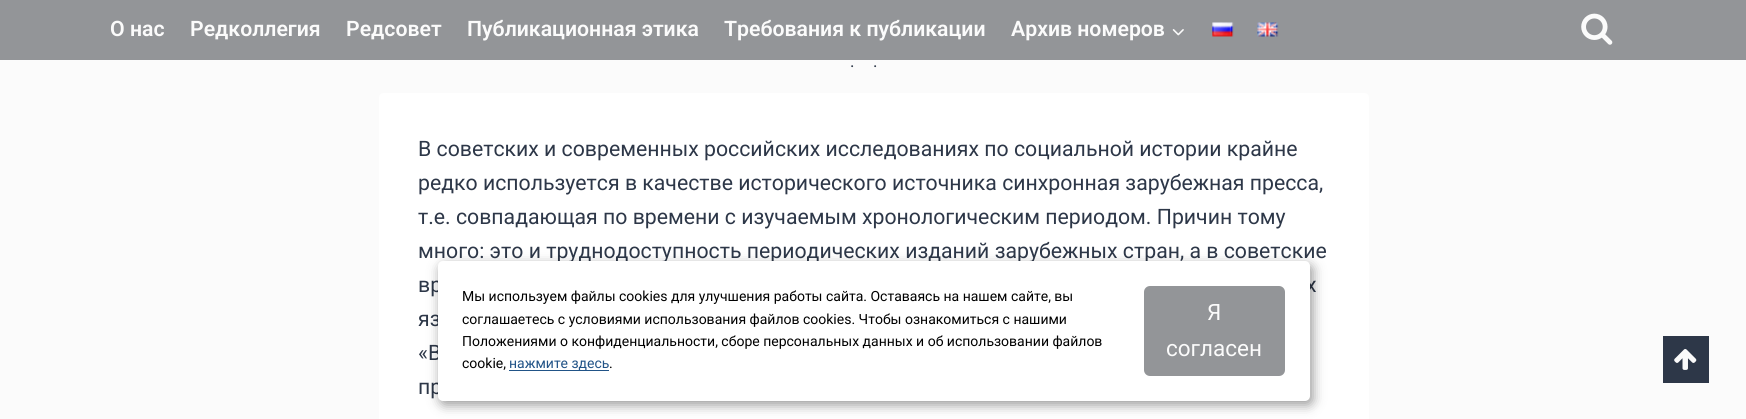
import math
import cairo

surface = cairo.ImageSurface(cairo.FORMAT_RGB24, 1746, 419)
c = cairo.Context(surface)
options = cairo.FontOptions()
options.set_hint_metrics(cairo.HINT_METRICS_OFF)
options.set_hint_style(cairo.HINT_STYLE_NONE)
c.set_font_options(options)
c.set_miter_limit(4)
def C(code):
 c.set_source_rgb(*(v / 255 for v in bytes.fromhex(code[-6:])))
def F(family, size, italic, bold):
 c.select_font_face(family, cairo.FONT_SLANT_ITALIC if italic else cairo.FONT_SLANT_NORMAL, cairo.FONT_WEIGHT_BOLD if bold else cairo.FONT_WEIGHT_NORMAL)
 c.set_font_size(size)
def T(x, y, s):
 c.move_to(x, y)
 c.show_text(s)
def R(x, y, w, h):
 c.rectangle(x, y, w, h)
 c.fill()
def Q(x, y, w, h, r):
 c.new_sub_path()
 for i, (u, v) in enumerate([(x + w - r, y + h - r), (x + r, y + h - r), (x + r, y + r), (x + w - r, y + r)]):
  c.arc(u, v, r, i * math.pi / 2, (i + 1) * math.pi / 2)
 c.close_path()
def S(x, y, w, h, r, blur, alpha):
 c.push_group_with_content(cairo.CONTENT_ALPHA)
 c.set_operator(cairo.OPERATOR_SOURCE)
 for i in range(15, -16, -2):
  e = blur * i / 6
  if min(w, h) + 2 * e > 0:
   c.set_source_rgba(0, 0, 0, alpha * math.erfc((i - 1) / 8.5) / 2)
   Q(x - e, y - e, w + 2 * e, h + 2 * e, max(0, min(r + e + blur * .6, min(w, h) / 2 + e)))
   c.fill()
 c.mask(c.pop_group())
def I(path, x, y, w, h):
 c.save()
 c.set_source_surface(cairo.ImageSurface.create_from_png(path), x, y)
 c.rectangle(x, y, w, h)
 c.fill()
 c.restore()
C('fbfbfb')
c.paint()
C('939598')
R(0,0,1746,60)
F('Roboto SemiBold',21.25,0,0)
C('fbfbfb')
T(110,36,'О нас')
T(190,36,'Редколлегия')
T(346,36,'Редсовет')
T(467,36,'Публикационная этика')
T(724,36,'Требования к публикации')
T(1011,36,'Архив номеров')
I('1.png',1172,29,12,7)
I('2.png',1212,22,22,15)
I('3.png',1257,22,22,15)
I('4.png',1581,13,32,32)
F('Roboto',17,0,0)
C('2d3748')
T(850,67,'.')
T(873,67,'.')
C('ffffff')
c.new_path()
c.move_to(384,93)
c.line_to(1364,93)
c.curve_to(1367,93,1369,95,1369,98)
c.line_to(1369,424)
c.line_to(379,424)
c.line_to(379,98)
c.curve_to(379,95,381,93,384,93)
c.close_path()
c.fill()
F('Roboto',21.25,0,0)
C('2d3748')
T(418,156,'В советских и современных российских исследованиях по социальной истории крайне')
T(418,190,'редко используется в качестве исторического источника синхронная зарубежная пресса,')
T(418,224,'т.е. совпадающая по времени с изучаемым хронологическим периодом. Причин тому')
T(418,258,'много: это и труднодоступность периодических изданий зарубежных стран, а в советские')
T(418,292,'вр')
T(1306,292,'х')
T(418,326,'яз')
T(418,360,'«В')
T(418,394,'пр')
C('000000')
S(440,265,873,140,5,6,.4)
C('ffffff')
Q(438,261,872,140,5)
c.fill()
F('Roboto',14,0,0)
C('000000')
T(462,301,'Мы используем файлы cookies для улучшения работы сайта. Оставаясь на нашем сайте, вы')
T(462,324,'соглашаетесь с условиями использования файлов cookies. Чтобы ознакомиться с нашими')
T(462,346,'Положениями о конфиденциальности, сборе персональных данных и об использовании файлов')
T(462,368,'cookie,')
C('215387')
R(509,370,100,1)
T(509,368,'нажмите здесь')
C('000000')
T(609,368,'.')
C('939598')
Q(1144,286,141,90,6)
c.fill()
F('Roboto',22.5,0,0)
C('fbfbfb')
T(1207,320,'Я')
T(1166,356,'согласен')
C('2d3748')
R(1663,336,46,47)
I('5.png',1674,349,23,21)
surface.write_to_png('o.png')
